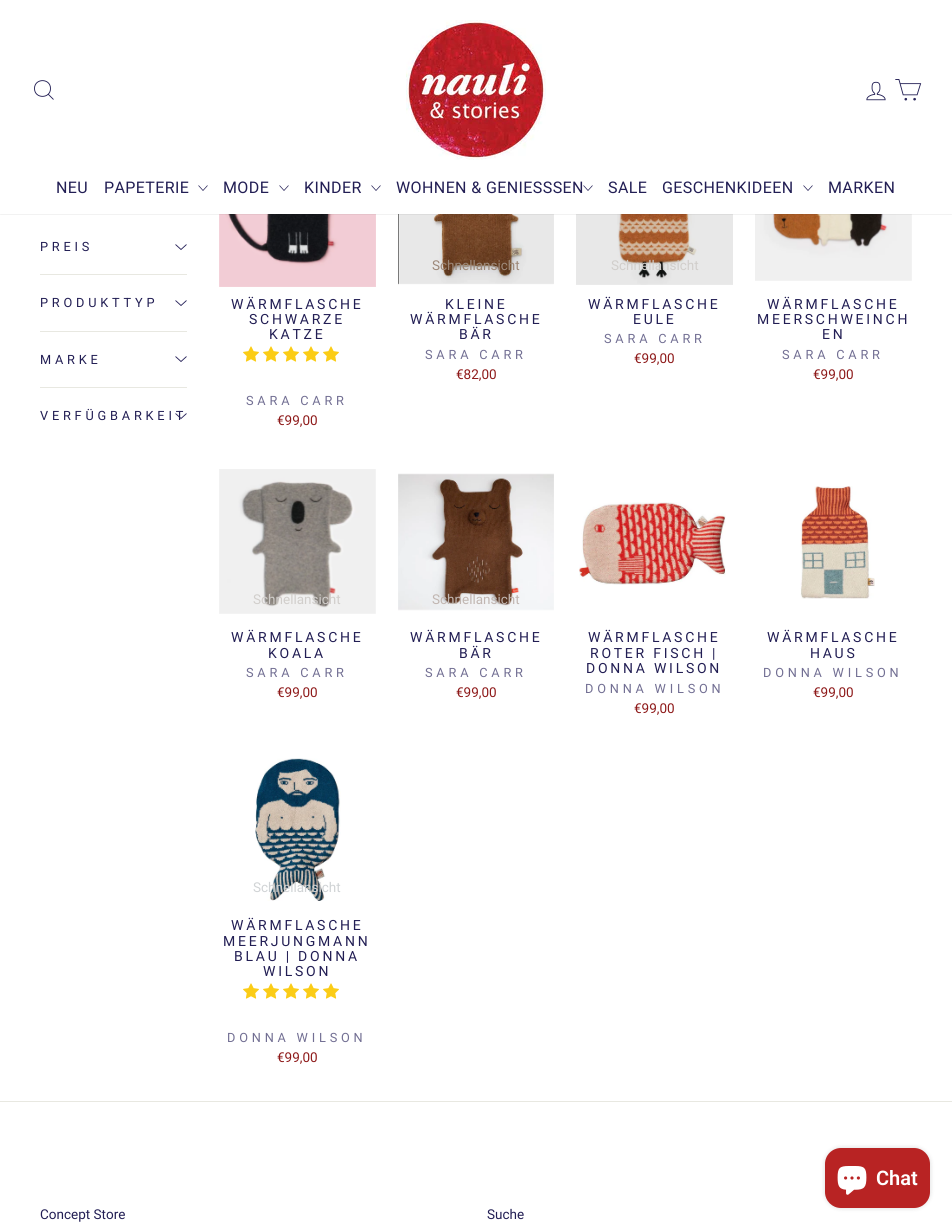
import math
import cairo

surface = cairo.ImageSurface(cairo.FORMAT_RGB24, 952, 1229)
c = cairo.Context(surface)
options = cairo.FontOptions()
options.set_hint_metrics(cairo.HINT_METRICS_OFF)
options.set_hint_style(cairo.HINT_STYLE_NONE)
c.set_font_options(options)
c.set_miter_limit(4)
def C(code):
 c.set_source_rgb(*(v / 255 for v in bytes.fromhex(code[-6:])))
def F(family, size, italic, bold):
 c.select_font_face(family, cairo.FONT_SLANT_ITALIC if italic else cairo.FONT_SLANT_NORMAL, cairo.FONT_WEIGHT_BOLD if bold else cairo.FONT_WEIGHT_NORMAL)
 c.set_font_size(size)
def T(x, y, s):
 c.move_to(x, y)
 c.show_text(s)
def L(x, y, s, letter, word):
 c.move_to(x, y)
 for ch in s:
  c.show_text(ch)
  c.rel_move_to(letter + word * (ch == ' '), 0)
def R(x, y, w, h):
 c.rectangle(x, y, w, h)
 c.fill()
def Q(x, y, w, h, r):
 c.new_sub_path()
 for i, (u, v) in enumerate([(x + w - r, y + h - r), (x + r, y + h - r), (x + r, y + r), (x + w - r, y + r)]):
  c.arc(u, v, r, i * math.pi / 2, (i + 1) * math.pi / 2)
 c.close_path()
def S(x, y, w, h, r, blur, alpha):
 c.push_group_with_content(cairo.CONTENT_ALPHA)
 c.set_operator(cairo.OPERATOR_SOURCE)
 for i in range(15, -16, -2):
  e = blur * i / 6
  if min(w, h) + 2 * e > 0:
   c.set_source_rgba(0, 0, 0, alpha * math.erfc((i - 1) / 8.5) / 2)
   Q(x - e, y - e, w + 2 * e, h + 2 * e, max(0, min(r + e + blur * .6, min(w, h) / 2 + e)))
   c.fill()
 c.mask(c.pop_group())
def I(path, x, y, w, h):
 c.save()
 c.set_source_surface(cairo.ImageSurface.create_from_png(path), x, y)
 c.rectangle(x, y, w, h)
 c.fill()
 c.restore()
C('ffffff')
c.paint()
I('4.png',219,214,157,73)
I('6.png',398,214,156,71)
I('7.png',576,214,157,71)
I('8.png',755,214,157,67)
C('000000')
S(0,0,952,214,0,.5,.2)
C('ffffff')
R(0,0,952,214)
c.new_path()
c.move_to(50.5,88.5)
c.curve_to(50.5,99,34.5,99,34.5,88.5)
c.curve_to(34.5,78,50.5,78,50.5,88.5)
c.close_path()
c.move_to(53.5,99.5)
c.line_to(48.5,94.5)
C('221e54')
c.set_line_width(.9)
c.stroke()
I('1.png',406,20,140,140)
I('2.png',866,81,20,20)
I('3.png',895,79,27,22)
F('Roboto',16,0,0)
L(56,193,'NEU',.4,0)
L(104,193,'PAPETERIE',.4,0)
c.new_path()
c.move_to(198.5,185.5)
c.line_to(203,190.5)
c.line_to(207.5,185.5)
c.set_line_width(.7)
c.stroke()
L(223,193,'MODE',.4,0)
c.new_path()
c.move_to(279.5,185.5)
c.line_to(284,190.5)
c.line_to(288.5,185.5)
c.stroke()
L(304,193,'KINDER',.4,0)
c.new_path()
c.move_to(371.5,185.5)
c.line_to(376,190.5)
c.line_to(380.5,185.5)
c.stroke()
L(396,193,'WOHNEN & GENIESSSEN',.4,0)
c.new_path()
c.move_to(583.5,185.5)
c.line_to(588,190.5)
c.line_to(592.5,185.5)
c.stroke()
L(608,193,'SALE',.4,0)
L(662,193,'GESCHENKIDEEN',.4,0)
c.new_path()
c.move_to(803.5,185.5)
c.line_to(808,190.5)
c.line_to(812.5,185.5)
c.stroke()
L(828,193,'MARKEN',.4,0)
F('Roboto',12.75,0,0)
L(40,251,'PREIS',3.8,0)
c.new_path()
c.move_to(175.5,244.5)
c.line_to(181,249.5)
c.line_to(186.5,244.5)
C('262159')
c.set_line_width(.9)
c.stroke()
C('e8e8e1')
R(40,274,147,1)
C('221e54')
L(40,307,'PRODUKTTYP',3.8,0)
c.new_path()
c.move_to(175.5,300.5)
c.line_to(181,305.5)
c.line_to(186.5,300.5)
C('262159')
c.stroke()
C('e8e8e1')
R(40,331,147,1)
C('221e54')
L(40,364,'MARKE',3.8,0)
c.new_path()
c.move_to(175.5,356.5)
c.line_to(181,361.5)
c.line_to(186.5,356.5)
C('262159')
c.stroke()
C('e8e8e1')
R(40,387,147,1)
C('221e54')
L(40,420,'VERFÜGBARKEIT',3.8,0)
c.new_path()
c.move_to(175.5,413.5)
c.line_to(181,418.5)
c.line_to(186.5,413.5)
C('262159')
c.stroke()
F('Roboto',14,0,0)
C('221e54')
L(231,309,'WÄRMFLASCHE',2.75,0)
L(249,324,'SCHWARZE',2.75,0)
L(269,339,'KATZE',2.75,0)
I('5.png',243,346,16,16)
I('5.png',263,346,16,16)
I('5.png',283,346,16,16)
I('5.png',303,346,16,16)
I('5.png',323,346,16,16)
F('Roboto',12.75,0,0)
C('726f93')
L(246,405,'SARA CARR',3.8,0)
F('Roboto',13.5,0,0)
C('8e1a1a')
T(277,425,'€99,00')
C('9d8879')
T(432,270,'Schnellansicht')
F('Roboto',14,0,0)
C('221e54')
L(445,309,'KLEINE',2.75,0)
L(410,324,'WÄRMFLASCHE',2.75,0)
L(459,339,'BÄR',2.75,0)
F('Roboto',12.75,0,0)
C('726f93')
L(425,359,'SARA CARR',3.8,0)
F('Roboto',13.5,0,0)
C('8e1a1a')
T(456,379,'€82,00')
C('d1cecb')
T(611,270,'Schnellansicht')
F('Roboto',14,0,0)
C('221e54')
L(588,309,'WÄRMFLASCHE',2.75,0)
L(633,324,'EULE',2.75,0)
F('Roboto',12.75,0,0)
C('726f93')
L(604,343,'SARA CARR',3.8,0)
F('Roboto',13.5,0,0)
C('8e1a1a')
T(634,363,'€99,00')
F('Roboto',14,0,0)
C('221e54')
L(767,309,'WÄRMFLASCHE',2.75,0)
L(757,324,'MEERSCHWEINCH',2.75,0)
L(822,339,'EN',2.75,0)
F('Roboto',12.75,0,0)
C('726f93')
L(782,359,'SARA CARR',3.8,0)
F('Roboto',13.5,0,0)
C('8e1a1a')
T(813,379,'€99,00')
I('9.png',219,469,157,145)
C('d1cecb')
T(253,604,'Schnellansicht')
F('Roboto',14,0,0)
C('221e54')
L(231,642,'WÄRMFLASCHE',2.75,0)
L(268,658,'KOALA',2.75,0)
F('Roboto',12.75,0,0)
C('726f93')
L(246,677,'SARA CARR',3.8,0)
F('Roboto',13.5,0,0)
C('8e1a1a')
T(277,697,'€99,00')
I('10.png',398,473,156,138)
C('c1b6b1')
T(432,604,'Schnellansicht')
F('Roboto',14,0,0)
C('221e54')
L(410,642,'WÄRMFLASCHE',2.75,0)
L(459,658,'BÄR',2.75,0)
F('Roboto',12.75,0,0)
C('726f93')
L(425,677,'SARA CARR',3.8,0)
F('Roboto',13.5,0,0)
C('8e1a1a')
T(456,697,'€99,00')
I('11.png',579,502,147,83)
F('Roboto',14,0,0)
C('221e54')
L(588,642,'WÄRMFLASCHE',2.75,0)
L(590,658,'ROTER FISCH |',2.75,0)
L(586,673,'DONNA WILSON',2.75,0)
F('Roboto',12.75,0,0)
C('726f93')
L(585,693,'DONNA WILSON',3.8,0)
F('Roboto',13.5,0,0)
C('8e1a1a')
T(634,713,'€99,00')
I('12.png',800,486,75,113)
F('Roboto',14,0,0)
C('221e54')
L(767,642,'WÄRMFLASCHE',2.75,0)
L(810,658,'HAUS',2.75,0)
F('Roboto',12.75,0,0)
C('726f93')
L(763,677,'DONNA WILSON',3.8,0)
F('Roboto',13.5,0,0)
C('8e1a1a')
T(813,697,'€99,00')
I('13.png',255,758,86,143)
C('d0d3d5')
T(253,892,'Schnellansicht')
F('Roboto',14,0,0)
C('221e54')
L(231,930,'WÄRMFLASCHE',2.75,0)
L(223,946,'MEERJUNGMANN',2.75,0)
L(234,961,'BLAU | DONNA',2.75,0)
L(263,976,'WILSON',2.75,0)
I('5.png',243,983,16,16)
I('5.png',263,983,16,16)
I('5.png',283,983,16,16)
I('5.png',303,983,16,16)
I('5.png',323,983,16,16)
F('Roboto',12.75,0,0)
C('726f93')
L(227,1042,'DONNA WILSON',3.8,0)
F('Roboto',13.5,0,0)
C('8e1a1a')
T(277,1062,'€99,00')
C('e8e8e1')
R(0,1101,952,1)
C('221e54')
T(40,1219,'Concept Store')
T(487,1219,'Suche')
C('000000')
S(825,1148,105,60,16,2.5,.15)
C('b82323')
Q(825,1148,105,60,16)
c.fill()
I('14.png',837,1166,30,29)
F('Roboto SemiBold',20,0,0)
C('ffffff')
T(876,1185,'Chat')
surface.write_to_png('o.png')
